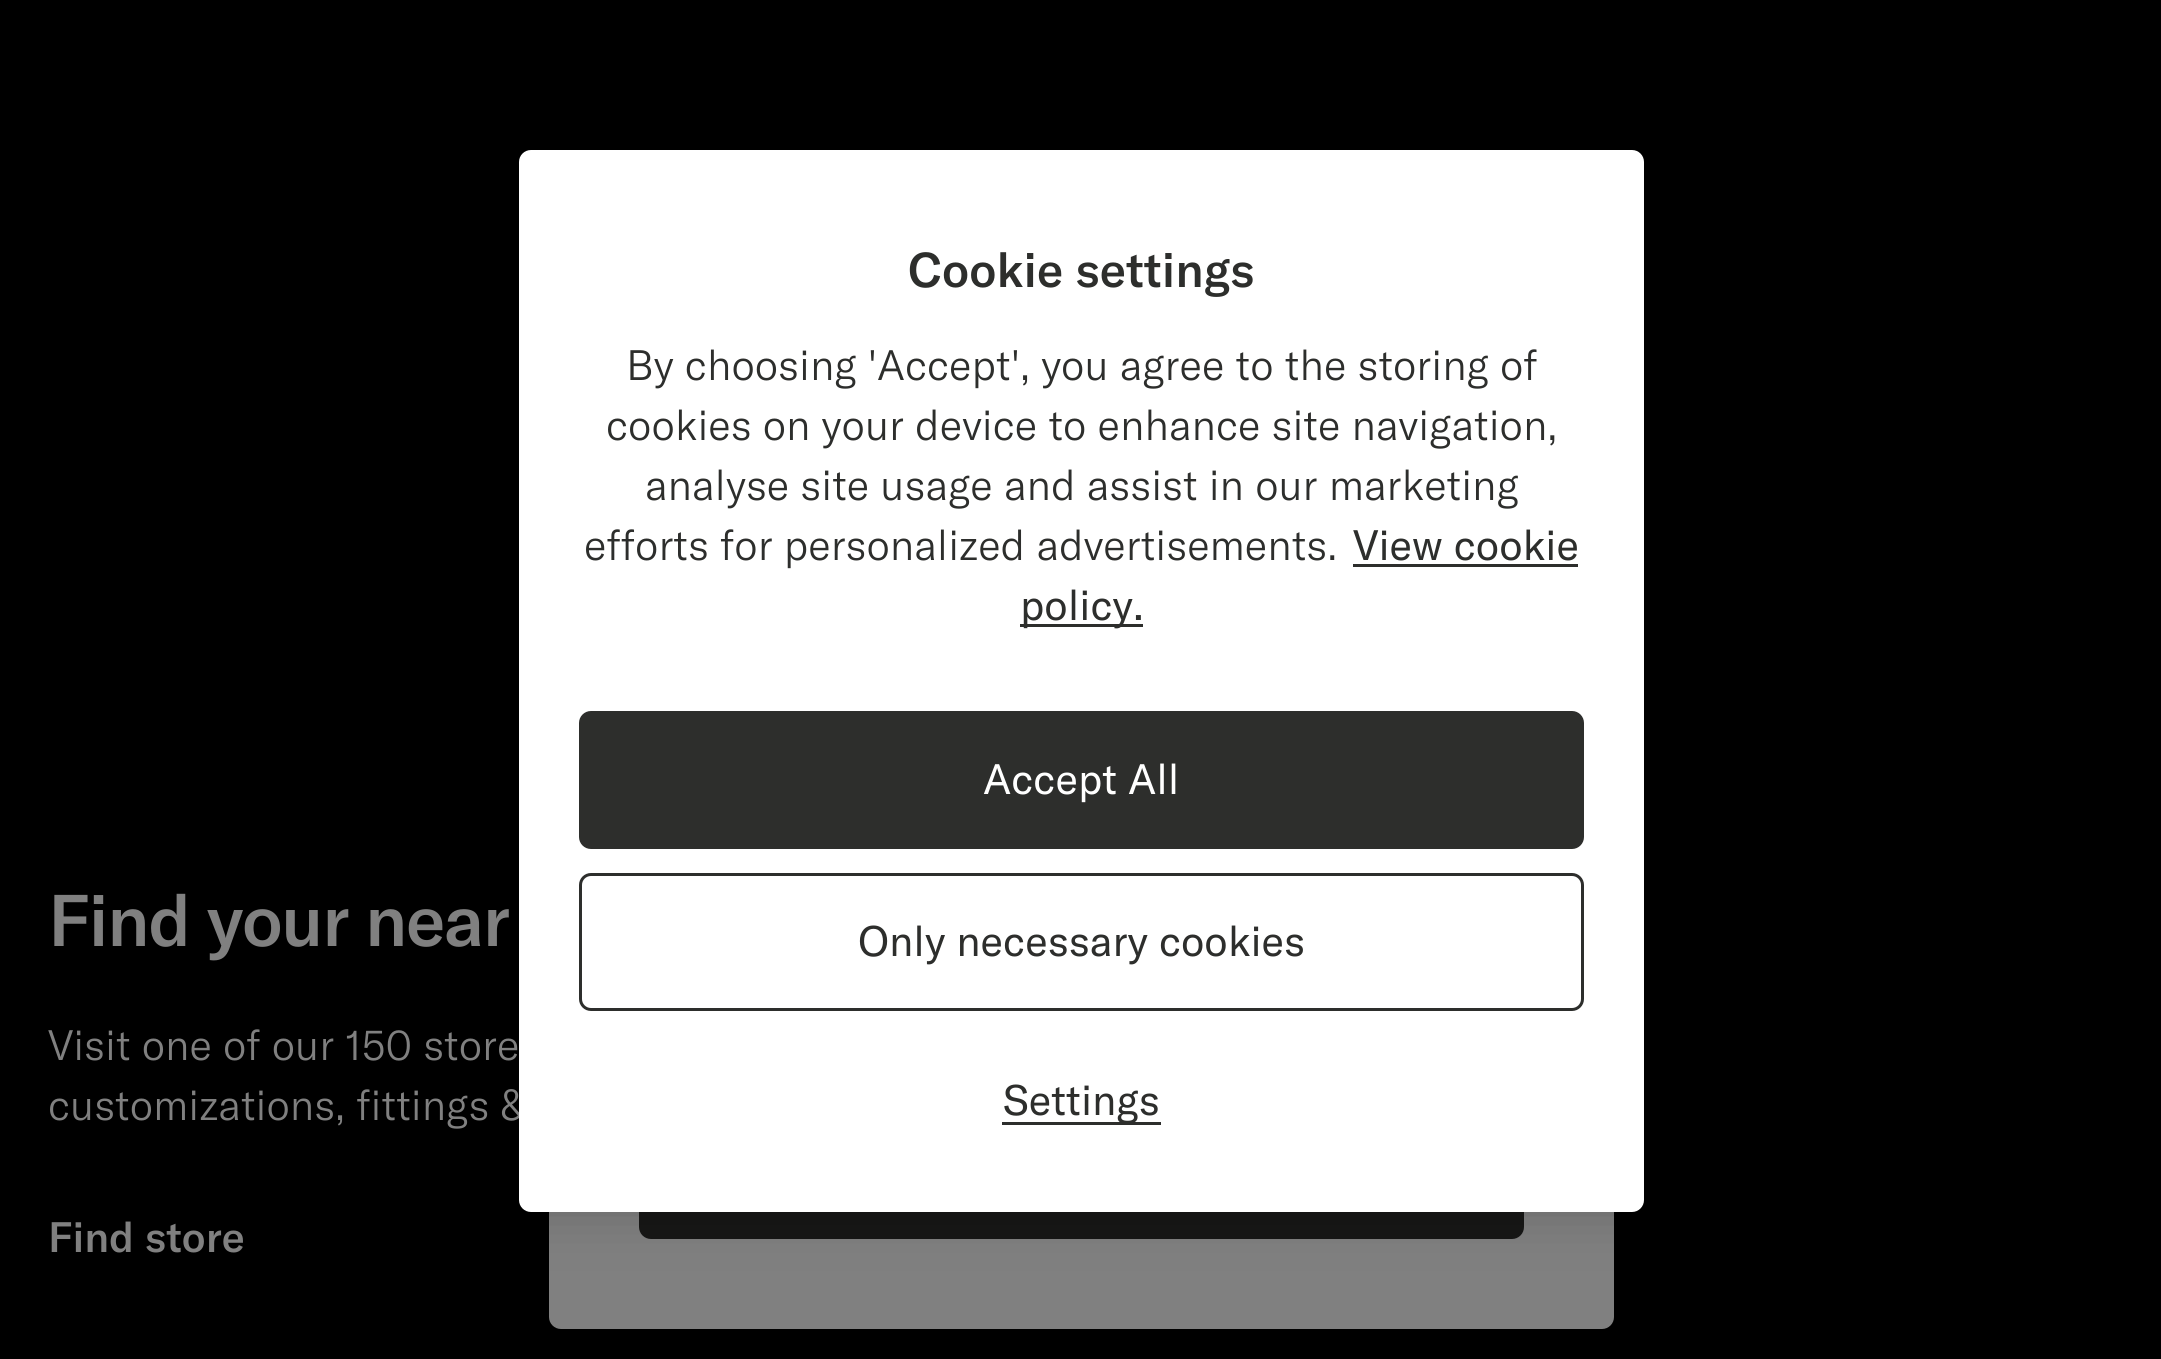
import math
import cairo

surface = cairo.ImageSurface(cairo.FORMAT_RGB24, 2161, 1359)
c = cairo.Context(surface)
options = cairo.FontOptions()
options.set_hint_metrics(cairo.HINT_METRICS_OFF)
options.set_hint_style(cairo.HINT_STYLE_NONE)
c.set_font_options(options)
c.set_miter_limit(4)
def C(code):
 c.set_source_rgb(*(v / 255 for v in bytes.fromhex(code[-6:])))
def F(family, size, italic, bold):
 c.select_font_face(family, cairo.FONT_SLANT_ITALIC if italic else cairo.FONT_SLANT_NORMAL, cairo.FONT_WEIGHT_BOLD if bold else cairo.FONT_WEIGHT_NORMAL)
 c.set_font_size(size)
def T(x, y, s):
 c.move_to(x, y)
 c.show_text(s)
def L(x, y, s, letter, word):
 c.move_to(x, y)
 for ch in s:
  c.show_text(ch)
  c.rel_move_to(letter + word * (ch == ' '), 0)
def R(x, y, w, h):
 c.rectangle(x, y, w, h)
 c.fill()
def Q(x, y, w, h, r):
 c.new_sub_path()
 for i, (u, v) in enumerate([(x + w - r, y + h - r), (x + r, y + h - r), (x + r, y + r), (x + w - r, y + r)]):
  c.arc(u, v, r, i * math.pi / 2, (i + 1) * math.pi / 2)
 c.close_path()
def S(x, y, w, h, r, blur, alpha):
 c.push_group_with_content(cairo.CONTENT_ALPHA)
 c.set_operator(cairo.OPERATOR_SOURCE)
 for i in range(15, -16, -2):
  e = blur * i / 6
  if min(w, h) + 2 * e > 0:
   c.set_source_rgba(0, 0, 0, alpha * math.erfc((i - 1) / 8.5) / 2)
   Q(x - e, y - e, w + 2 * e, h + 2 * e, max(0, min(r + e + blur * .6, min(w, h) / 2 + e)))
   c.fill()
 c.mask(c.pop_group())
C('000000')
c.paint()
C('808080')
Q(549,573,1065,756,12)
c.fill()
C('171716')
Q(640.5,1108.5,882,129,10.5)
c.fill_preserve()
c.set_line_width(3)
c.stroke()
C('000000')
S(519,150,1125,1062,12,27,.2)
F('GT America Light',42,0,0)
C('808080')
T(48,1120,'customizations, fittings &')
C('ffffff')
Q(519,150,1125,1062,12)
c.fill()
F('GT America Medium',48,0,0)
C('2d2e2c')
T(908,287,'Cookie settings')
F('GT America Light',42,0,0)
T(626,380,'By choosing \'Accept\', you agree to the storing of')
T(606,440,'cookies on your device to enhance site navigation,')
T(645,500,'analyse site usage and assist in our marketing')
T(584,560,'efforts for personalized advertisements.')
F('GT America',42,0,0)
T(1353,560,'View cookie')
R(1353,564,225,3)
R(1020,624,123,3)
T(1020,620,'policy.')
Q(580.5,712.5,1002,135,10.5)
c.fill_preserve()
c.stroke()
C('ffffff')
T(983,794,'Accept All')
Q(580.5,874.5,1002,135,10.5)
C('2d2e2c')
c.stroke()
T(858,956,'Only necessary cookies')
R(1002,1122,159,3)
T(1003,1115,'Settings')
F('GT America Medium',72,0,0)
C('808080')
L(48,946,'Find your near',-1.5,0)
F('GT America Light',42,0,0)
T(48,1060,'Visit one of our 150 store')
F('GT America Medium',42,0,0)
T(48,1252,'Find store')
surface.write_to_png('o.png')
